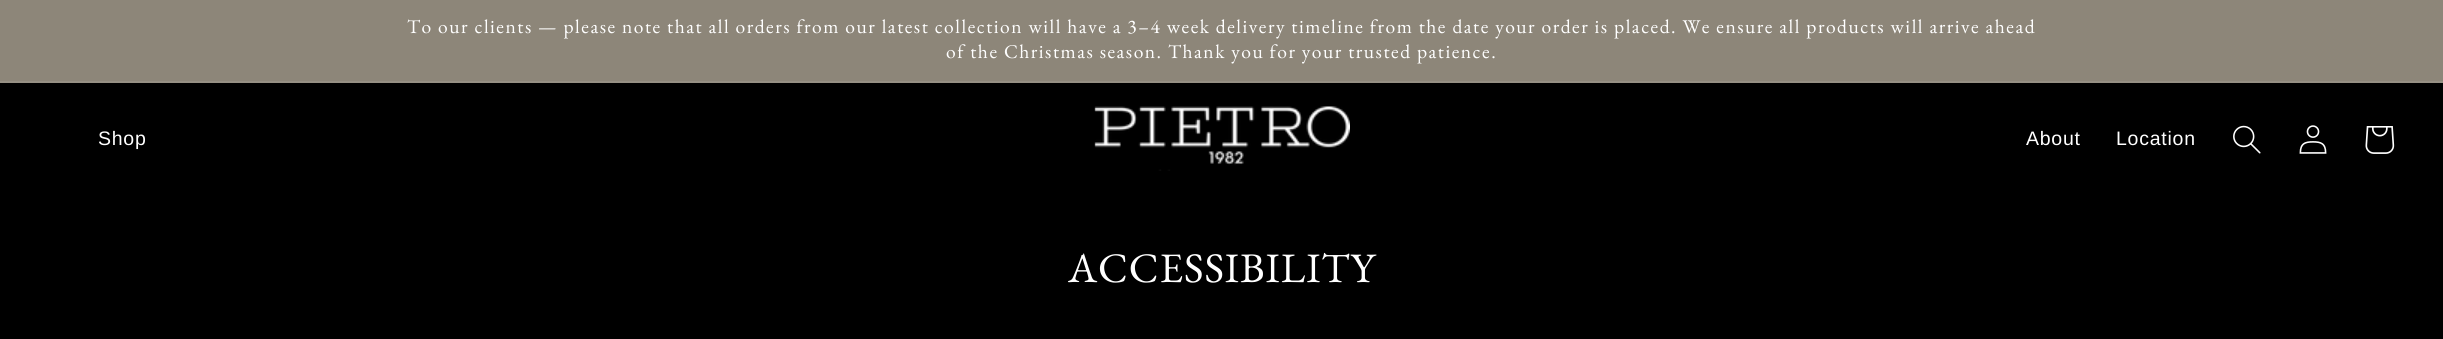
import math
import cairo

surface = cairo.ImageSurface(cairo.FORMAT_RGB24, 2443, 339)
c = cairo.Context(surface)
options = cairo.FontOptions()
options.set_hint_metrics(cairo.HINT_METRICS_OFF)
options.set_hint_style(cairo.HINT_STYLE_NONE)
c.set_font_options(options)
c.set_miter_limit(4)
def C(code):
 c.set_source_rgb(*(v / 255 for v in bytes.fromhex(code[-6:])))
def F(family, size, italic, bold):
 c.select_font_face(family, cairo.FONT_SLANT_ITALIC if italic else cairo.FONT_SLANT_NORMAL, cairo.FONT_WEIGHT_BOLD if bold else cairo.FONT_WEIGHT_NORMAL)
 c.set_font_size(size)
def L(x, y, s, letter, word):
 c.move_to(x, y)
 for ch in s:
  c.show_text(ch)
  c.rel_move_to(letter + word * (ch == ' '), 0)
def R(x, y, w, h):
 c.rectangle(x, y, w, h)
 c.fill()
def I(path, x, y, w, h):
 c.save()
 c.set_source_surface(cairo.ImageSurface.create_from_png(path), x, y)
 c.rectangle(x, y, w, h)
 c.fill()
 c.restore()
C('000000')
c.paint()
C('8d8679')
R(0,0,2443,81)
C('969084')
R(0,81,2443,2)
F('EB Garamond',19.5,0,0)
C('ffffff')
L(407,33,'To our clients — please note that all orders from our latest collection will have a 3–4 week delivery timeline from the date your order is placed. We ensure all products will arrive ahead',1.5,0)
L(946,58,'of the Christmas season. Thank you for your trusted patience.',1.5,0)
F('Liberation Sans',19.5,0,0)
L(98,145,'Shop',.75,0)
I('1.png',1094,106,256,65)
L(2026,145,'About',.75,0)
L(2116,145,'Location',.75,0)
I('2.png',2233,125,28,29)
I('3.png',2299,125,28,29)
I('4.png',2365,126,30,28)
F('EB Garamond',42,0,0)
L(1068,282,'ACCESSIBILITY',.9,0)
surface.write_to_png('o.png')
